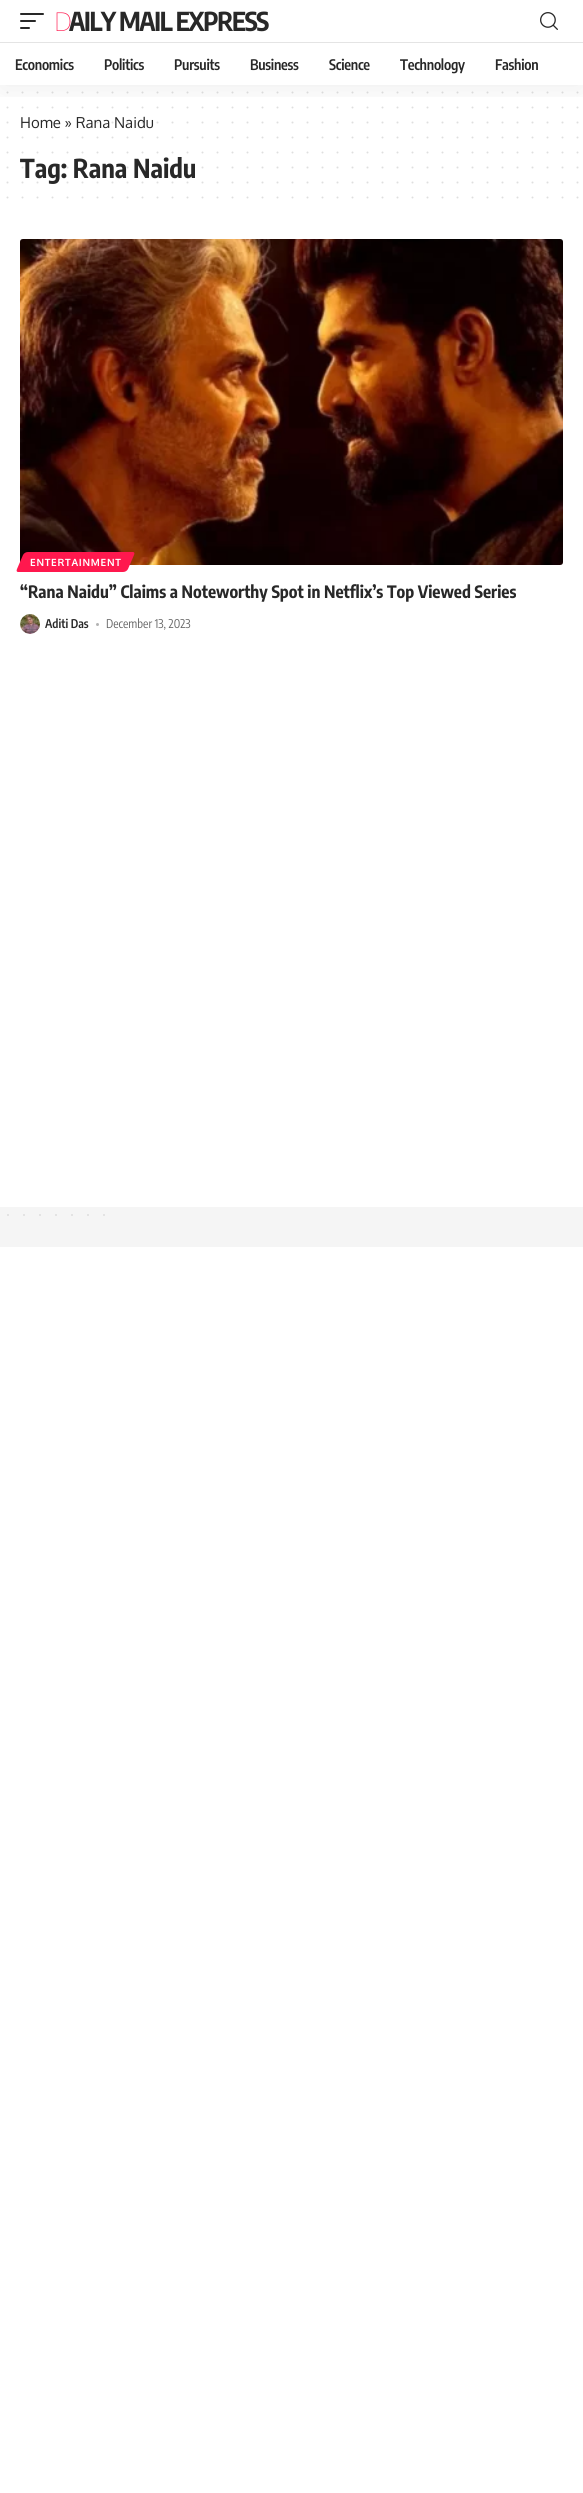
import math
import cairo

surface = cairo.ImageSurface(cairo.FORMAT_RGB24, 583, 2493)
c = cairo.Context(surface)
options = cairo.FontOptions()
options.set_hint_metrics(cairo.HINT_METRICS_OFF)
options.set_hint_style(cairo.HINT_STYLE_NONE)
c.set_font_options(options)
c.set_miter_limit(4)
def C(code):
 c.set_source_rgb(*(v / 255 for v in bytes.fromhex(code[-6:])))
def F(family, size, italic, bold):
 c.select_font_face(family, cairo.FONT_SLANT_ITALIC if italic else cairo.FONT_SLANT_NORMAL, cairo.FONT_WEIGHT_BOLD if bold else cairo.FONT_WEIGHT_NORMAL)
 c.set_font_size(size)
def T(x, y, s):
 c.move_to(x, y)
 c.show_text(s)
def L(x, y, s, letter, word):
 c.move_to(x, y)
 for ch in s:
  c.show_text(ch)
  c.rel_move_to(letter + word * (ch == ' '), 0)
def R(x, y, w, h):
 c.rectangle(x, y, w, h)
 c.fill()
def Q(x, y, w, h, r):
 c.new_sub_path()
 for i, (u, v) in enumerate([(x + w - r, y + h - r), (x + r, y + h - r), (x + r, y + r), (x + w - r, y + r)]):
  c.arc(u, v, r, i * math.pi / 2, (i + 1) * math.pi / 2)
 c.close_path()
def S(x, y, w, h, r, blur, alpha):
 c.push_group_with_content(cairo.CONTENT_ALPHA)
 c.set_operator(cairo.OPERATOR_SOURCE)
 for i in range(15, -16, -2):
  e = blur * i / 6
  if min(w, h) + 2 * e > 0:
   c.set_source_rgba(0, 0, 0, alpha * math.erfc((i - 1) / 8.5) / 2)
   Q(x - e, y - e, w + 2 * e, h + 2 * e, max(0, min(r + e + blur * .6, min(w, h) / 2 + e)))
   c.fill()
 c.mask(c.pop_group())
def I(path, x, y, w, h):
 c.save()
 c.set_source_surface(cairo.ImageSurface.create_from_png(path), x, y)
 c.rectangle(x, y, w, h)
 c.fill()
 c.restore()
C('ffffff')
c.paint()
c.new_path()
c.move_to(7.5,92.5)
c.line_to(577.7,92.5)
C('dfdfdf')
c.set_line_cap(cairo.LINE_CAP_ROUND)
c.set_dash([0,15])
c.stroke()
c.new_path()
c.move_to(7.5,107.5)
c.line_to(577.7,107.5)
c.stroke()
F('Oxygen',15,0,0)
C('282828')
T(20,128,'Home » Rana Naidu')
c.new_path()
c.move_to(7.5,122.5)
c.line_to(577.7,122.5)
c.set_source_rgba(0.157,0.157,0.157,0.15)
c.stroke()
c.save()
c.rectangle(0,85,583,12)
c.clip()
C('000000')
S(0,4,583,85,0,15,.07)
c.restore()
C('282828')
Q(20,13,24,2,1)
c.fill()
Q(20,20,16,2,1)
c.fill()
Q(20,27,10,2,1)
c.fill()
F('Noto Sans Thin',26,0,0)
C('ff184e')
L(54,31,'D',-1.25,0)
F('Encode Sans Condensed',26,0,1)
C('282828')
L(69,31,'AILY MAIL EXPRESS',-1.25,0)
I('1.png',540,12,18,18)
C('e4e4e4')
R(0,42,583,1)
F('Encode Sans Condensed SemiBold',14.5,0,0)
C('282828')
L(15,70,'Economics',-.25,0)
L(104,70,'Politics',-.25,0)
L(174,70,'Pursuits',-.25,0)
L(250,70,'Business',-.25,0)
L(329,70,'Science',-.25,0)
L(400,70,'Technology',-.25,0)
L(495,70,'Fashion',-.25,0)
c.new_path()
c.move_to(7.5,137.5)
c.line_to(577.7,137.5)
C('dfdfdf')
c.stroke()
c.new_path()
c.move_to(7.5,152.5)
c.line_to(577.7,152.5)
c.stroke()
F('Encode Sans Condensed',26,0,1)
C('282828')
T(20,178,'Tag: Rana Naidu')
c.new_path()
c.move_to(7.5,167.5)
c.line_to(577.7,167.5)
c.set_source_rgba(0.157,0.157,0.157,0.15)
c.stroke()
c.new_path()
c.move_to(7.5,182.5)
c.line_to(577.7,182.5)
c.stroke()
c.new_path()
c.move_to(7.5,197.5)
c.line_to(577.7,197.5)
C('dfdfdf')
c.stroke()
I('2.png',20,239,543,326)
C('ff184e')
c.new_path()
c.move_to(28,552)
c.line_to(133,552)
c.curve_to(134,552,135,553,134,555)
c.line_to(128,569)
c.curve_to(127,571,125,572,123,572)
c.line_to(18,572)
c.curve_to(17,572,16,571,17,569)
c.line_to(23,555)
c.curve_to(24,553,26,552,28,552)
c.close_path()
c.fill()
F('Oxygen',10,0,1)
C('ffffff')
L(30,566,'ENTERTAINMENT',.75,0)
F('Encode Sans Condensed',17,0,1)
C('282828')
T(20,598,'“Rana Naidu” Claims a Noteworthy Spot in Netflix’s Top Viewed Series')
I('3.png',20,614,20,20)
F('Encode Sans Condensed SemiBold',12,0,0)
T(45,628,'Aditi Das')
C('b3b3b3')
c.new_path()
c.arc(97.5,624.5,1.5,0,2 * math.pi)
c.fill()
F('Encode Sans Condensed',12,0,0)
C('666666')
T(106,628,'December 13, 2023')
C('f5f5f5')
R(0,1207,583,40)
c.new_path()
c.move_to(8,1215)
c.line_to(104.2,1215)
C('cccccc')
c.set_line_width(1.5)
c.set_dash([0,16])
c.stroke()
surface.write_to_png('o.png')
